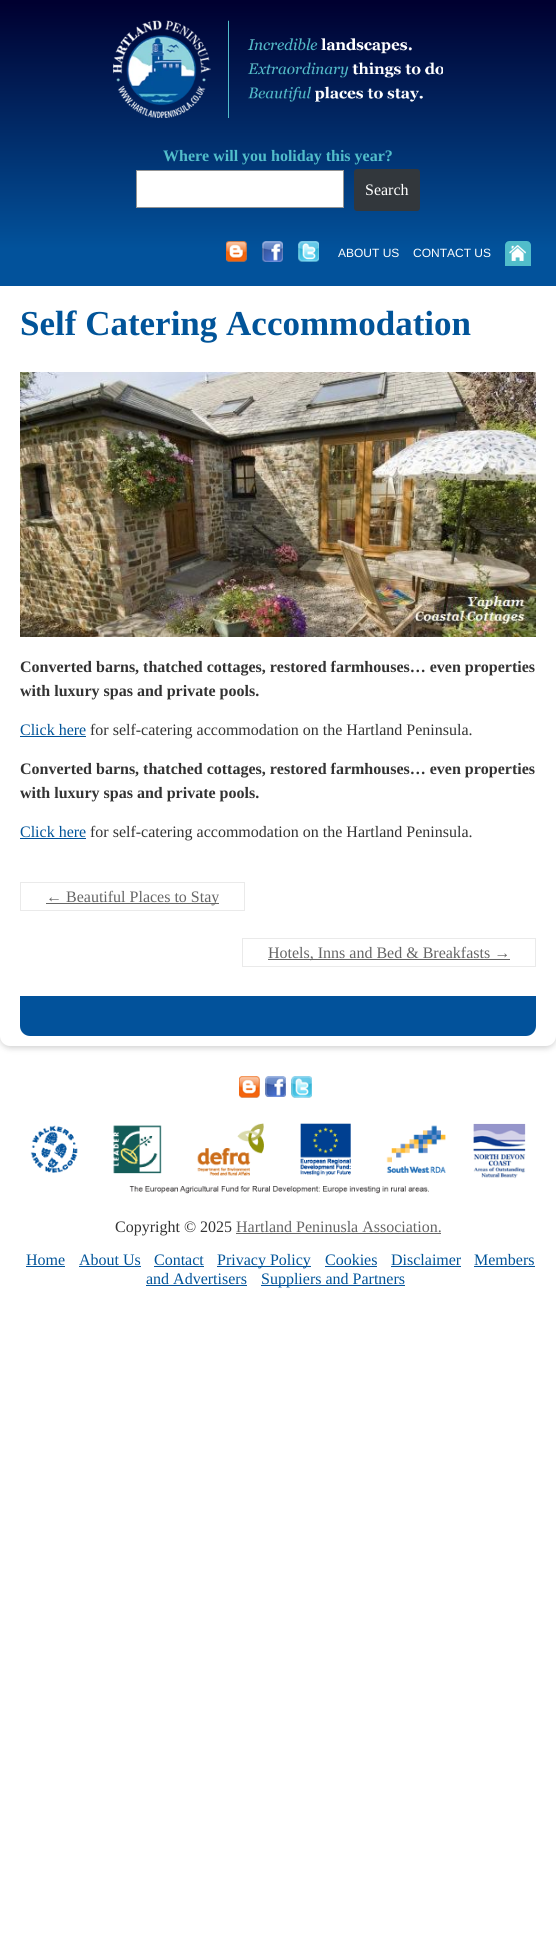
import math
import cairo

surface = cairo.ImageSurface(cairo.FORMAT_RGB24, 556, 1933)
c = cairo.Context(surface)
options = cairo.FontOptions()
options.set_hint_metrics(cairo.HINT_METRICS_OFF)
options.set_hint_style(cairo.HINT_STYLE_NONE)
c.set_font_options(options)
c.set_miter_limit(4)
def C(code):
 c.set_source_rgb(*(v / 255 for v in bytes.fromhex(code[-6:])))
def F(family, size, italic, bold):
 c.select_font_face(family, cairo.FONT_SLANT_ITALIC if italic else cairo.FONT_SLANT_NORMAL, cairo.FONT_WEIGHT_BOLD if bold else cairo.FONT_WEIGHT_NORMAL)
 c.set_font_size(size)
def T(x, y, s):
 c.move_to(x, y)
 c.show_text(s)
def R(x, y, w, h):
 c.rectangle(x, y, w, h)
 c.fill()
def Q(x, y, w, h, r):
 c.new_sub_path()
 for i, (u, v) in enumerate([(x + w - r, y + h - r), (x + r, y + h - r), (x + r, y + r), (x + w - r, y + r)]):
  c.arc(u, v, r, i * math.pi / 2, (i + 1) * math.pi / 2)
 c.close_path()
def S(x, y, w, h, r, blur, alpha):
 c.push_group_with_content(cairo.CONTENT_ALPHA)
 c.set_operator(cairo.OPERATOR_SOURCE)
 for i in range(15, -16, -2):
  e = blur * i / 6
  if min(w, h) + 2 * e > 0:
   c.set_source_rgba(0, 0, 0, alpha * math.erfc((i - 1) / 8.5) / 2)
   Q(x - e, y - e, w + 2 * e, h + 2 * e, max(0, min(r + e + blur * .6, min(w, h) / 2 + e)))
   c.fill()
 c.mask(c.pop_group())
def I(path, x, y, w, h):
 c.save()
 c.set_source_surface(cairo.ImageSurface.create_from_png(path), x, y)
 c.rectangle(x, y, w, h)
 c.fill()
 c.restore()
C('ffffff')
c.paint()
C('646464')
S(0,2,556,1046,10,3,.3)
C('ffffff')
c.new_path()
c.move_to(0,0)
c.line_to(556,0)
c.line_to(556,1036)
c.curve_to(556,1041.5,551.5,1046,546,1046)
c.line_to(10,1046)
c.curve_to(4.5,1046,0,1041.5,0,1036)
c.close_path()
c.fill()
gradient = cairo.LinearGradient(278,0,278,286)
gradient.add_color_stop_rgba(.01,0,0,0.188,1)
gradient.add_color_stop_rgba(.87,0.008,0.322,0.608,1)
c.set_source(gradient)
R(0,0,556,286)
I('1.png',113,20,330,98)
F('Liberation Serif',16,0,1)
C('51bdca')
T(163,161,'Where will you holiday this year?')
C('ffffff')
c.rectangle(136.5,170.5,207,37)
c.fill_preserve()
C('949494')
c.set_line_width(1)
c.stroke()
C('32373c')
Q(354,169,66,42,3)
c.fill()
F('Liberation Serif',16,0,0)
C('ffffff')
T(365,195,'Search')
I('2.png',226,241,21,21)
I('3.png',262,241,21,21)
I('4.png',298,241,21,21)
F('Liberation Sans',12,0,0)
T(338,257,'ABOUT US')
T(413,257,'CONTACT US')
I('5.png',505,241,26,25)
F('Liberation Serif',35,0,1)
C('015499')
T(20,335,'Self Catering Accommodation')
I('6.png',20,372,516,265)
F('Liberation Serif',16,0,1)
C('333333')
T(20,672,'Converted barns, thatched cottages, restored farmhouses… even properties')
T(20,696,'with luxury spas and private pools.')
F('Liberation Serif',16,0,0)
C('015499')
T(20,735,'Click here')
C('00529b')
R(20,736,66,1)
C('333333')
T(90,735,'for self-catering accommodation on the Hartland Peninsula.')
F('Liberation Serif',16,0,1)
T(20,774,'Converted barns, thatched cottages, restored farmhouses… even properties')
T(20,798,'with luxury spas and private pools.')
F('Liberation Serif',16,0,0)
C('015499')
T(20,837,'Click here')
C('00529b')
R(20,838,66,1)
C('333333')
T(90,837,'for self-catering accommodation on the Hartland Peninsula.')
C('666666')
R(46,903,173,1)
T(46,902,'← Beautiful Places to Stay')
C('eaeaea')
R(20,882,225,1)
R(20,910,42,1)
R(20,882,1,29)
R(244,882,1,29)
R(62,910,183,1)
C('666666')
R(268,959,242,1)
T(268,958,'Hotels, Inns and Bed & Breakfasts →')
C('eaeaea')
R(242,938,294,1)
R(242,966,252,1)
R(242,938,1,29)
R(535,938,1,29)
R(494,966,42,1)
C('02529b')
c.new_path()
c.move_to(20,996)
c.line_to(536,996)
c.line_to(536,1026)
c.curve_to(536,1031.5,531.5,1036,526,1036)
c.line_to(30,1036)
c.curve_to(24.5,1036,20,1031.5,20,1026)
c.close_path()
c.fill()
I('7.png',239,1076,21,22)
I('8.png',265,1076,21,21)
I('9.png',291,1076,21,22)
I('10.png',30,1123,496,71)
C('333333')
T(115,1232,'Copyright © 2025')
C('666666')
T(236,1232,'Hartland Peninusla Association.')
R(236,1233,205,1)
C('015499')
T(26,1265,'Home')
C('00529b')
R(26,1266,39,1)
C('015499')
T(79,1265,'About Us')
C('00529b')
R(79,1266,62,1)
C('015499')
T(154,1265,'Contact')
C('00529b')
R(154,1266,50,1)
R(217,1266,94,1)
C('015499')
T(217,1265,'Privacy Policy')
T(325,1265,'Cookies')
C('00529b')
R(325,1266,52,1)
C('015499')
T(391,1265,'Disclaimer')
C('00529b')
R(391,1266,70,1)
C('015499')
T(474,1265,'Members')
C('00529b')
R(474,1266,61,1)
C('015499')
T(146,1284,'and Advertisers')
C('00529b')
R(146,1285,101,1)
R(261,1285,144,1)
C('015499')
T(261,1284,'Suppliers and Partners')
surface.write_to_png('o.png')
